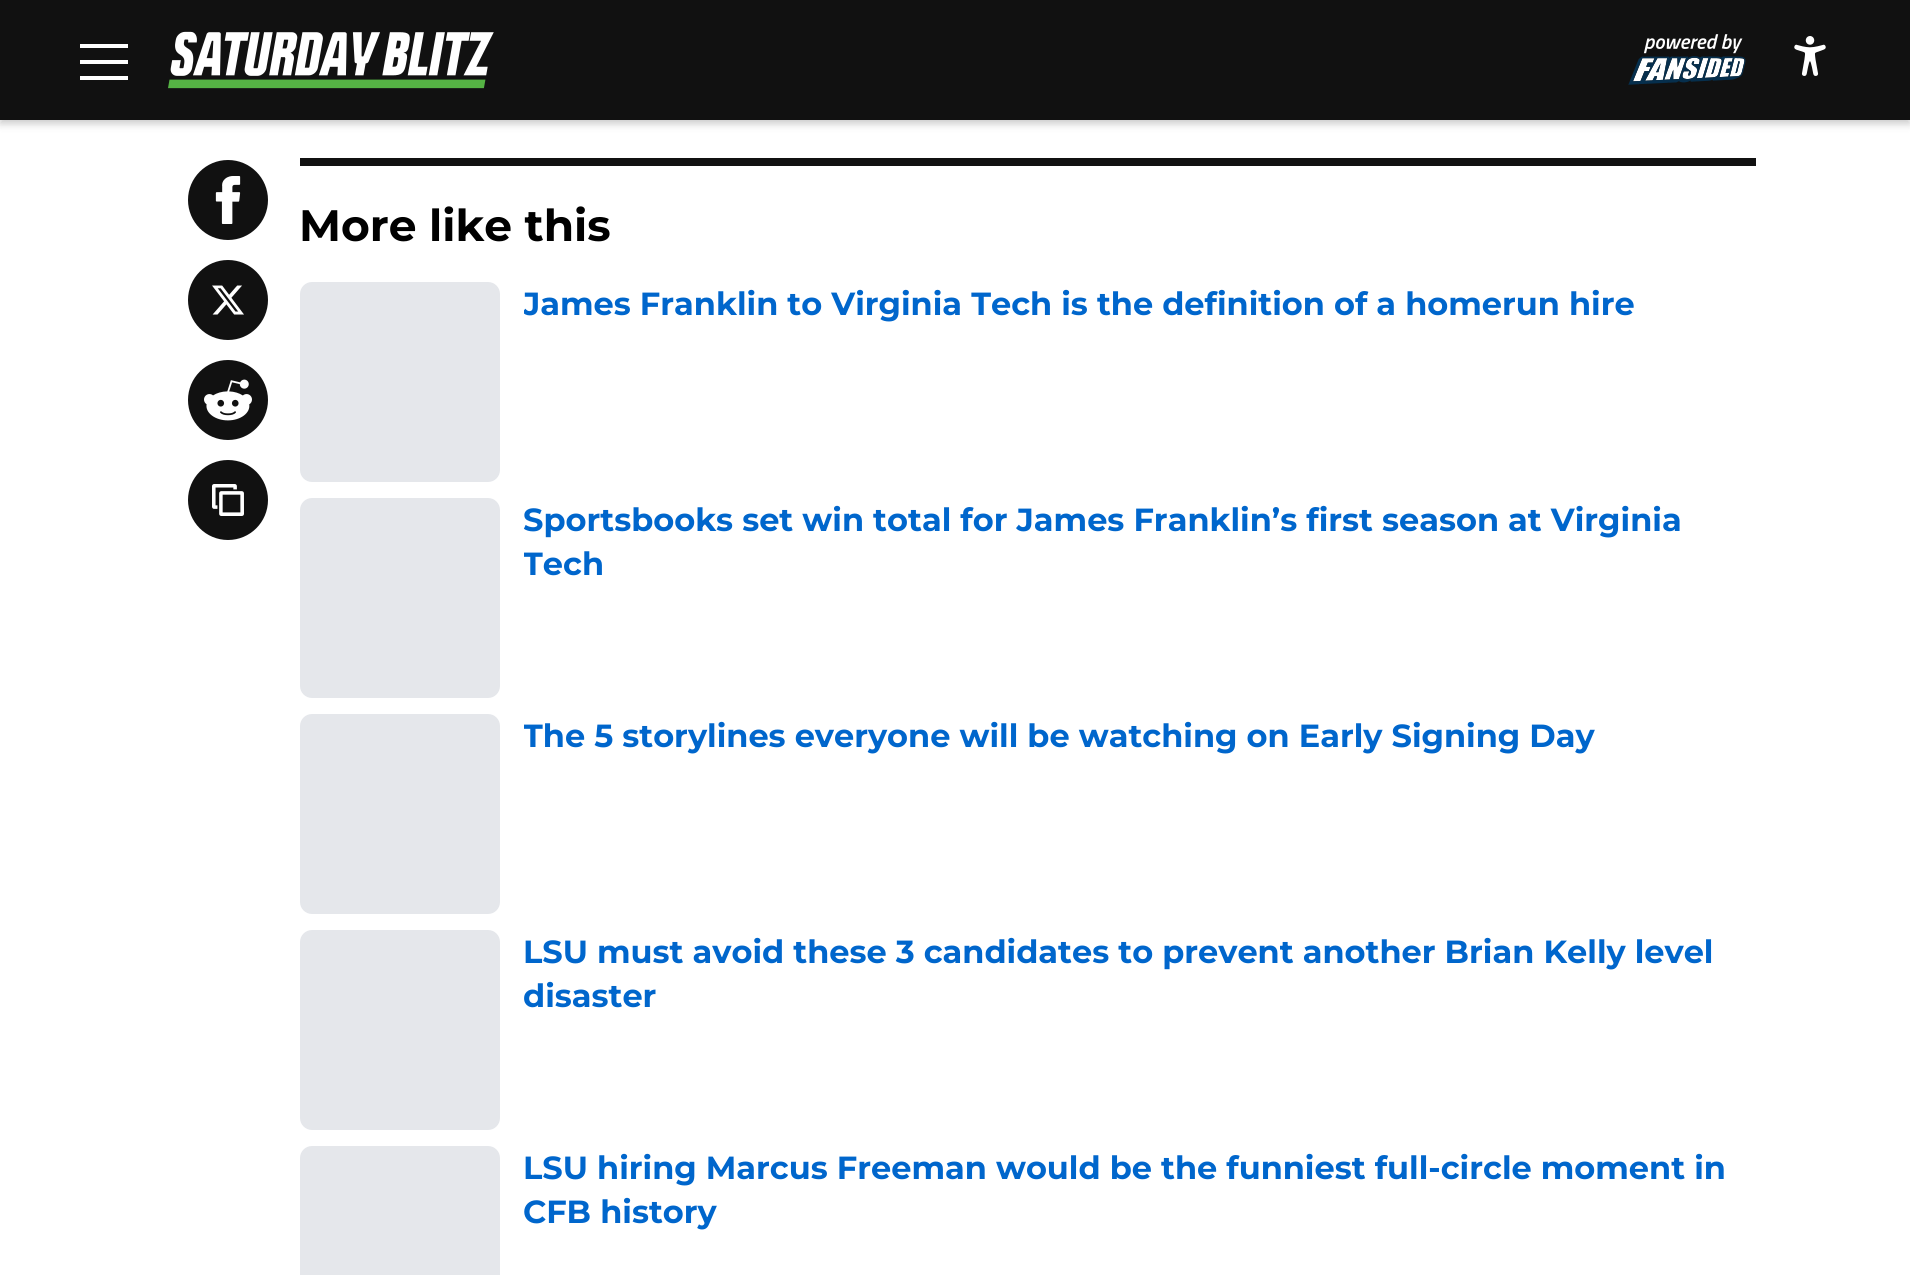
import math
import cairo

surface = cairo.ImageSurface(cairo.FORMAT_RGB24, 1910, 1275)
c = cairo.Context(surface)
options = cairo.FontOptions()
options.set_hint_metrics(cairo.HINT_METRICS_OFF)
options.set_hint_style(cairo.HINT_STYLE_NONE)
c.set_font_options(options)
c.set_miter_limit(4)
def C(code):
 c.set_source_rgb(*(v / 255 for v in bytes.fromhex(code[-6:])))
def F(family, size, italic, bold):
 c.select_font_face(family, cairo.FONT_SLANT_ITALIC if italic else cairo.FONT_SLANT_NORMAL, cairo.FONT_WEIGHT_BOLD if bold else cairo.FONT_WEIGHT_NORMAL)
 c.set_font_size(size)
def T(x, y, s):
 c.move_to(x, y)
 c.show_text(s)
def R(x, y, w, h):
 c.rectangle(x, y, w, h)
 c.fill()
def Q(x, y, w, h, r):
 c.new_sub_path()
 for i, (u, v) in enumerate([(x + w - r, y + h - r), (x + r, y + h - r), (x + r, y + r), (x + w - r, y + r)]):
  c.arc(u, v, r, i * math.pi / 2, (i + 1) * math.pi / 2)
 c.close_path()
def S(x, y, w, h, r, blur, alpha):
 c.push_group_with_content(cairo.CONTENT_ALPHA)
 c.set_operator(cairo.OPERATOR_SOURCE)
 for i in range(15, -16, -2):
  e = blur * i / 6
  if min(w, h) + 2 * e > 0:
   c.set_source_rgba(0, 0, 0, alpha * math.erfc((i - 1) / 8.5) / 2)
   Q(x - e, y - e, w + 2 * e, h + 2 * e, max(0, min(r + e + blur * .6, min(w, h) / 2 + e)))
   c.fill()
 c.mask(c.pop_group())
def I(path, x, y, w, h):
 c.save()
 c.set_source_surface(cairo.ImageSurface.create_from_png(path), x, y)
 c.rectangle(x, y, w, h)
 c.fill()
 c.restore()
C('ffffff')
c.paint()
C('000000')
S(0,4,1910,120,0,4,.2)
C('111111')
R(0,0,1910,120)
C('ffffff')
R(80,44,48,4)
R(80,60,48,4)
R(80,76,48,4)
I('1.png',168,31,326,58)
I('2.png',1628,34,118,51)
I('3.png',1794,36,32,40)
C('111111')
c.arc(228,200,40,0,2 * math.pi)
c.fill()
I('4.png',215,176,26,48)
c.arc(228,300,40,0,2 * math.pi)
c.fill()
I('5.png',212,285,32,30)
c.arc(228,400,40,0,2 * math.pi)
c.fill()
I('6.png',204,379,48,42)
c.arc(228,500,40,0,2 * math.pi)
c.fill()
I('7.png',212,484,32,32)
R(300,158,1456,8)
F('Montserrat Thin',44,0,0)
C('000000')
T(299,241,'More like this')
C('e5e7eb')
Q(300,282,200,200,12)
c.fill()
c.save()
c.rectangle(524,282,1232,46)
c.clip()
F('Montserrat Thin',32,0,0)
C('0066cc')
T(523,315,'James Franklin to Virginia Tech is the definition of a homerun hire')
c.restore()
Q(300,498,200,200,12)
c.fill()
F('Montserrat Thin',32,0,0)
C('0066cc')
T(523,531,'Sportsbooks set win total for James Franklin’s first season at Virginia')
c.save()
c.rectangle(524,498,1232,90)
c.clip()
T(523,575,'Tech')
c.restore()
C('e5e7eb')
Q(300,714,200,200,12)
c.fill()
c.save()
c.rectangle(524,714,1232,46)
c.clip()
C('0066cc')
T(523,747,'The 5 storylines everyone will be watching on Early Signing Day')
c.restore()
Q(300,930,200,200,12)
c.fill()
C('0066cc')
T(523,963,'LSU must avoid these 3 candidates to prevent another Brian Kelly level')
T(523,1007,'disaster')
C('e5e7eb')
Q(300,1146,200,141,12)
c.fill()
C('0066cc')
T(523,1179,'LSU hiring Marcus Freeman would be the funniest full-circle moment in')
T(523,1223,'CFB history')
surface.write_to_png('o.png')
